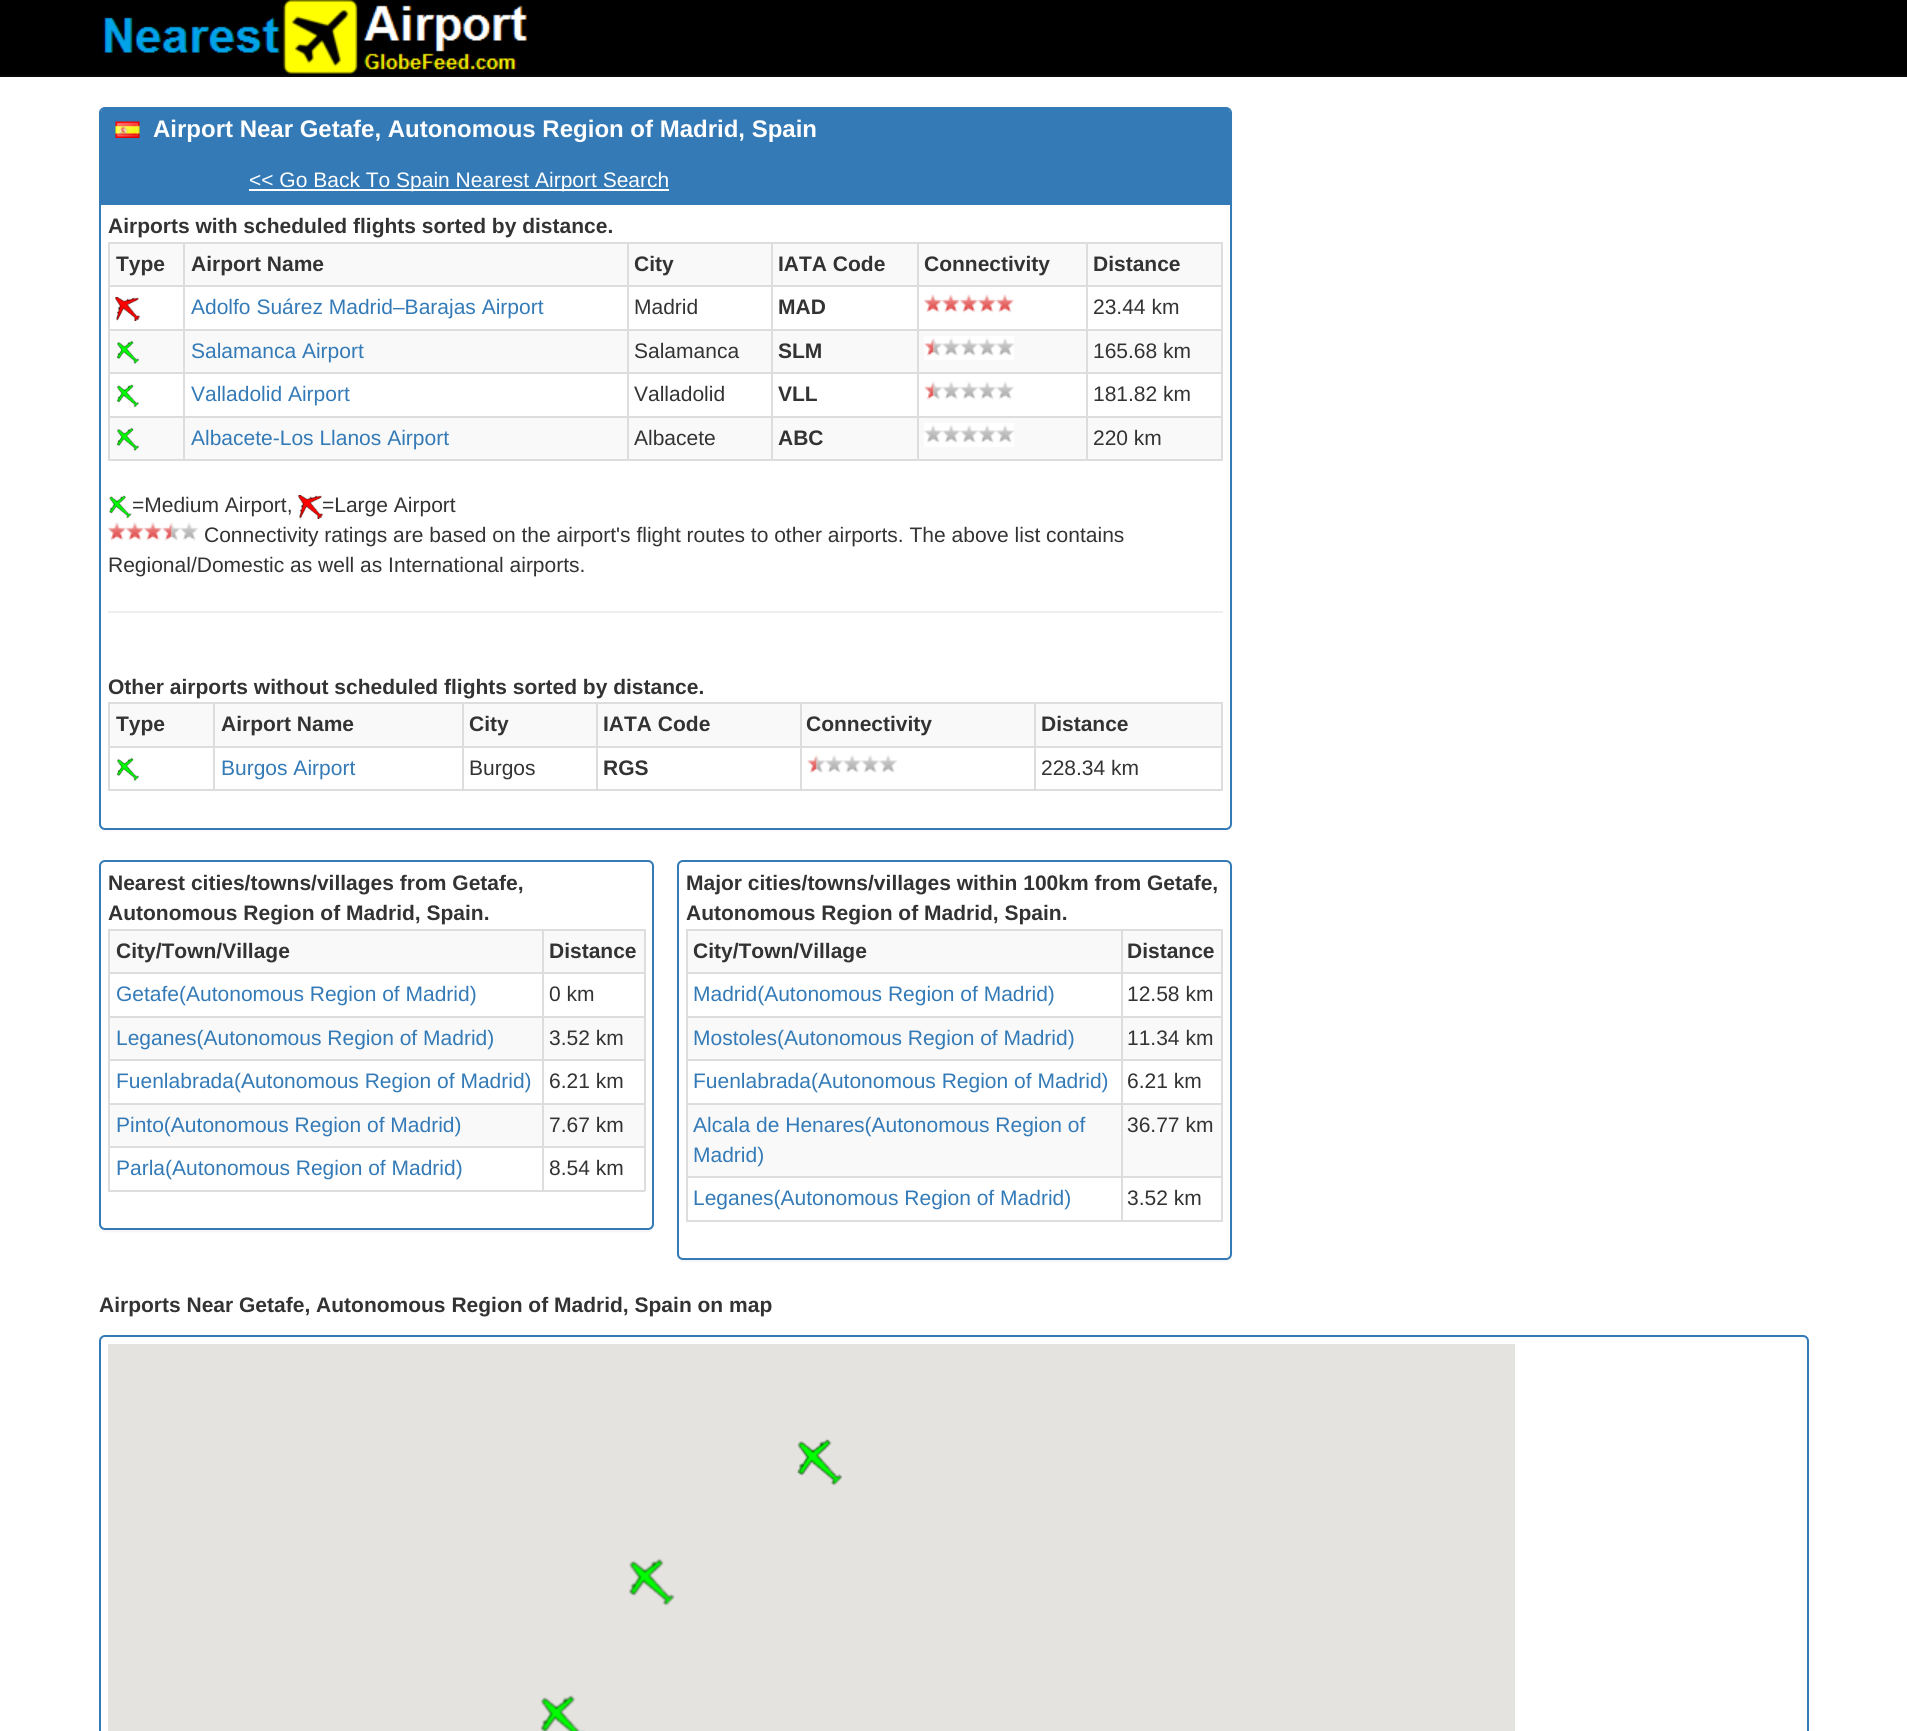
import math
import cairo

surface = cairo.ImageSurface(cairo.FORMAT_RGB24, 1907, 1731)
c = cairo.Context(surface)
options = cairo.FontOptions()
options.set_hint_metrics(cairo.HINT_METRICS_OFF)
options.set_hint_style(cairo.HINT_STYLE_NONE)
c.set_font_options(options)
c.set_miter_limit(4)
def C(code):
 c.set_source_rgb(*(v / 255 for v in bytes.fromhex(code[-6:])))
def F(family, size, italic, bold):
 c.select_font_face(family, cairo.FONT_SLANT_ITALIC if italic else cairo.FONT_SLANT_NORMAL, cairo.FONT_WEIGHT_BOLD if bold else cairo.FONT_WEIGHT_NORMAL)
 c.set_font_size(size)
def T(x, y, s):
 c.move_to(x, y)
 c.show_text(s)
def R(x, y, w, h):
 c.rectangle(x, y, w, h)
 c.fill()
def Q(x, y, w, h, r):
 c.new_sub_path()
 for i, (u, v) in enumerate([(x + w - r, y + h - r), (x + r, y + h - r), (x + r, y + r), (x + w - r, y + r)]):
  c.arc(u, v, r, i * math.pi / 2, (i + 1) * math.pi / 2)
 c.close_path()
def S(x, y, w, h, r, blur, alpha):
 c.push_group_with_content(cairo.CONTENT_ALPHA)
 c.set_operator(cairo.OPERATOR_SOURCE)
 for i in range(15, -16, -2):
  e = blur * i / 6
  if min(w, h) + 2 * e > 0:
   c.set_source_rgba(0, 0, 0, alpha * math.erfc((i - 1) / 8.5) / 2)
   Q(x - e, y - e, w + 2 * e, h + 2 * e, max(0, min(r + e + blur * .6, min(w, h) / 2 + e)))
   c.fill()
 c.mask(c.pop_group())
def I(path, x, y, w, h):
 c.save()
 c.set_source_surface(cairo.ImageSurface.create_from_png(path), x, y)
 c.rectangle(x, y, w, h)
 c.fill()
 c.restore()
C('ffffff')
c.paint()
C('000000')
R(0,0,1907,75)
C('080808')
R(0,75,1907,2)
I('1.png',103,0,424,74)
C('000000')
S(99,108,1133,723,6,1,.05)
C('ffffff')
Q(100,108,1131,721,5)
c.fill_preserve()
C('337ab7')
c.stroke()
c.new_path()
c.move_to(106,108)
c.line_to(1225,108)
c.curve_to(1228,108,1230,110,1230,113)
c.line_to(1230,204)
c.line_to(101,204)
c.line_to(101,113)
c.curve_to(101,110,103,108,106,108)
c.close_path()
c.fill()
R(101,204,1129,1)
I('2.png',115,121,25,17)
F('Liberation Sans',24,0,1)
C('ffffff')
T(153,137,'Airport Near Getafe, Autonomous Region of Madrid, Spain')
R(249,189,420,2)
F('Liberation Sans',21,0,0)
T(249,187,'<< Go Back To Spain Nearest Airport Search')
F('Liberation Sans',21,0,1)
C('333333')
T(108,233,'Airports with scheduled flights sorted by distance.')
C('dddddd')
R(108,242,1115,2)
R(1221,242,2,219)
R(108,459,1115,2)
R(108,242,2,219)
C('f9f9f9')
R(110,244,1111,41)
C('333333')
T(116,271,'Type')
C('dddddd')
R(1086,285,137,2)
R(1086,329,137,2)
C('f9f9f9')
R(110,331,1111,41)
C('dddddd')
R(1086,372,137,2)
R(1086,416,137,2)
C('f9f9f9')
R(110,418,1111,41)
C('dddddd')
R(1086,416,2,45)
R(917,416,171,2)
R(1086,372,2,45)
R(917,372,171,2)
R(1086,329,2,45)
R(917,329,171,2)
R(1086,285,2,45)
R(917,285,171,2)
R(917,416,2,45)
R(771,416,147,2)
R(917,372,2,45)
R(771,372,147,2)
R(917,329,2,45)
R(771,329,147,2)
R(917,285,2,45)
R(771,285,147,2)
R(771,416,2,45)
R(627,416,146,2)
R(771,372,2,45)
R(627,372,146,2)
R(771,329,2,45)
R(627,329,146,2)
R(771,285,2,45)
R(627,285,146,2)
R(627,416,2,45)
R(183,416,446,2)
R(627,372,2,45)
R(183,372,446,2)
R(627,329,2,45)
R(183,329,446,2)
R(627,285,2,45)
R(183,285,446,2)
R(183,416,2,45)
R(108,416,77,2)
R(183,372,2,45)
R(108,372,77,2)
R(183,329,2,45)
R(108,329,77,2)
R(183,285,2,45)
R(108,285,77,2)
R(183,242,2,45)
C('333333')
T(191,271,'Airport Name')
C('dddddd')
R(627,242,2,45)
C('333333')
T(634,271,'City')
C('dddddd')
R(771,242,2,45)
C('333333')
T(778,271,'IATA Code')
C('dddddd')
R(917,242,2,45)
C('333333')
T(924,271,'Connectivity')
C('dddddd')
R(1086,242,2,45)
C('333333')
T(1093,271,'Distance')
I('3.png',115,297,25,24)
F('Liberation Sans',21,0,0)
C('337ab7')
T(191,314,'Adolfo Suárez Madrid–Barajas Airport')
C('333333')
T(634,314,'Madrid')
F('Liberation Sans',21,0,1)
T(778,314,'MAD')
I('4.png',924,294,90,19)
F('Liberation Sans',21,0,0)
T(1093,314,'23.44 km')
I('5.png',116,340,23,24)
C('337ab7')
T(191,358,'Salamanca Airport')
C('333333')
T(634,358,'Salamanca')
F('Liberation Sans',21,0,1)
T(778,358,'SLM')
I('6.png',924,336,90,24)
F('Liberation Sans',21,0,0)
T(1093,358,'165.68 km')
I('7.png',116,384,23,24)
C('337ab7')
T(191,401,'Valladolid Airport')
C('333333')
T(634,401,'Valladolid')
F('Liberation Sans',21,0,1)
T(778,401,'VLL')
I('8.png',924,381,90,19)
F('Liberation Sans',21,0,0)
T(1093,401,'181.82 km')
I('5.png',116,427,23,24)
C('337ab7')
T(191,445,'Albacete-Los Llanos Airport')
C('333333')
T(634,445,'Albacete')
F('Liberation Sans',21,0,1)
T(778,445,'ABC')
I('9.png',924,423,90,24)
F('Liberation Sans',21,0,0)
T(1093,445,'220 km')
I('10.png',109,495,23,24)
T(132,512,'=Medium Airport,')
I('11.png',298,495,25,24)
T(322,512,'=Large Airport')
I('12.png',108,522,90,19)
T(204,542,'Connectivity ratings are based on the airport\'s flight routes to other airports. The above list contains')
T(108,572,'Regional/Domestic as well as International airports.')
C('eeeeee')
R(108,611,1115,2)
F('Liberation Sans',21,0,1)
C('333333')
T(108,694,'Other airports without scheduled flights sorted by distance.')
C('dddddd')
R(108,702,1115,2)
R(1221,702,2,89)
R(108,789,1115,2)
R(108,702,2,89)
C('f9f9f9')
R(110,704,1111,42)
C('333333')
T(116,731,'Type')
C('dddddd')
R(1034,746,189,2)
R(1034,746,2,45)
R(800,746,235,2)
R(800,746,2,45)
R(596,746,205,2)
R(596,746,2,45)
R(462,746,135,2)
R(462,746,2,45)
R(213,746,251,2)
R(213,746,2,45)
R(108,746,107,2)
R(213,702,2,45)
C('333333')
T(221,731,'Airport Name')
C('dddddd')
R(462,702,2,45)
C('333333')
T(469,731,'City')
C('dddddd')
R(596,702,2,45)
C('333333')
T(603,731,'IATA Code')
C('dddddd')
R(800,702,2,45)
C('333333')
T(806,731,'Connectivity')
C('dddddd')
R(1034,702,2,45)
C('333333')
T(1041,731,'Distance')
I('13.png',116,757,23,24)
F('Liberation Sans',21,0,0)
C('337ab7')
T(221,775,'Burgos Airport')
C('333333')
T(469,775,'Burgos')
F('Liberation Sans',21,0,1)
T(603,775,'RGS')
I('14.png',807,754,90,19)
F('Liberation Sans',21,0,0)
T(1041,775,'228.34 km')
C('000000')
S(99,861,555,371,6,1,.05)
C('ffffff')
Q(100,861,553,368,5)
c.fill_preserve()
C('337ab7')
c.stroke()
F('Liberation Sans',21,0,1)
C('333333')
T(108,890,'Nearest cities/towns/villages from Getafe,')
T(108,920,'Autonomous Region of Madrid, Spain.')
C('dddddd')
R(108,929,537,2)
R(644,929,2,262)
R(108,1190,537,2)
R(108,929,2,262)
C('f9f9f9')
R(110,931,534,41)
C('333333')
T(116,958,'City/Town/Village')
C('dddddd')
R(542,972,103,2)
R(542,1016,103,2)
C('f9f9f9')
R(110,1018,534,41)
C('dddddd')
R(542,1059,103,2)
R(542,1103,103,2)
C('f9f9f9')
R(110,1105,534,41)
C('dddddd')
R(542,1146,103,2)
R(542,1146,2,45)
R(108,1146,435,2)
R(542,1103,2,45)
R(108,1103,435,2)
R(542,1059,2,45)
R(108,1059,435,2)
R(542,1016,2,45)
R(108,1016,435,2)
R(542,972,2,45)
R(108,972,435,2)
R(542,929,2,45)
C('333333')
T(549,958,'Distance')
F('Liberation Sans',21,0,0)
C('337ab7')
T(116,1001,'Getafe(Autonomous Region of Madrid)')
C('333333')
T(549,1001,'0 km')
C('337ab7')
T(116,1045,'Leganes(Autonomous Region of Madrid)')
C('333333')
T(549,1045,'3.52 km')
C('337ab7')
T(116,1088,'Fuenlabrada(Autonomous Region of Madrid)')
C('333333')
T(549,1088,'6.21 km')
C('337ab7')
T(116,1132,'Pinto(Autonomous Region of Madrid)')
C('333333')
T(549,1132,'7.67 km')
C('337ab7')
T(116,1175,'Parla(Autonomous Region of Madrid)')
C('333333')
T(549,1175,'8.54 km')
C('000000')
S(677,861,555,401,6,1,.05)
C('ffffff')
Q(678,861,553,398,5)
c.fill_preserve()
C('337ab7')
c.stroke()
F('Liberation Sans',21,0,1)
C('333333')
T(686,890,'Major cities/towns/villages within 100km from Getafe,')
T(686,920,'Autonomous Region of Madrid, Spain.')
C('dddddd')
R(686,929,537,2)
R(1221,929,2,292)
R(686,1220,537,2)
R(686,929,2,292)
C('f9f9f9')
R(688,931,533,41)
C('333333')
T(693,958,'City/Town/Village')
C('dddddd')
R(1121,972,102,2)
R(1121,1016,102,2)
C('f9f9f9')
R(688,1018,533,41)
C('dddddd')
R(1121,1059,102,2)
R(1121,1103,102,2)
C('f9f9f9')
R(688,1105,533,71)
C('dddddd')
R(1121,1176,102,2)
R(1121,1176,2,45)
R(686,1176,436,2)
R(1121,1103,2,75)
R(686,1103,436,2)
R(1121,1059,2,45)
R(686,1059,436,2)
R(1121,1016,2,45)
R(686,1016,436,2)
R(1121,972,2,45)
R(686,972,436,2)
R(1121,929,2,45)
C('333333')
T(1127,958,'Distance')
F('Liberation Sans',21,0,0)
C('337ab7')
T(693,1001,'Madrid(Autonomous Region of Madrid)')
C('333333')
T(1127,1001,'12.58 km')
C('337ab7')
T(693,1045,'Mostoles(Autonomous Region of Madrid)')
C('333333')
T(1127,1045,'11.34 km')
C('337ab7')
T(693,1088,'Fuenlabrada(Autonomous Region of Madrid)')
C('333333')
T(1127,1088,'6.21 km')
C('337ab7')
T(693,1132,'Alcala de Henares(Autonomous Region of')
T(693,1162,'Madrid)')
C('333333')
T(1127,1132,'36.77 km')
C('337ab7')
T(693,1205,'Leganes(Autonomous Region of Madrid)')
C('333333')
T(1127,1205,'3.52 km')
F('Liberation Sans',21,0,1)
T(99,1312,'Airports Near Getafe, Autonomous Region of Madrid, Spain on map')
Q(100,1336,1708,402,5)
C('337ab7')
c.stroke()
C('e5e3df')
R(108,1344,1407,387)
I('15.png',796,1438,47,48)
I('16.png',628,1558,47,48)
I('17.png',540,1695,45,36)
surface.write_to_png('o.png')
